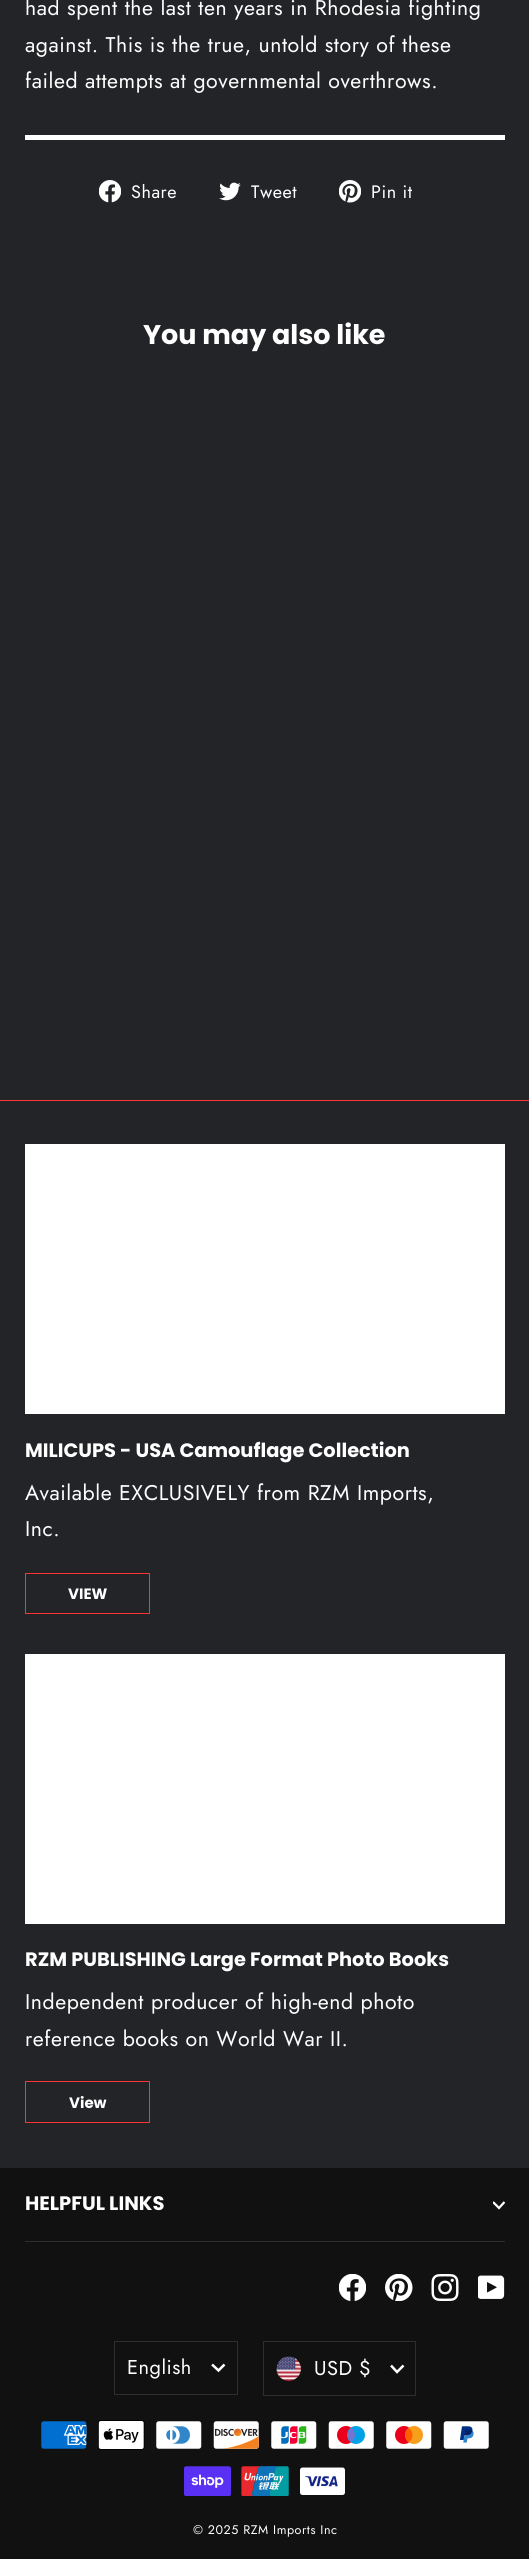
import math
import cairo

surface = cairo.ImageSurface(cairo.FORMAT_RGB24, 529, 2559)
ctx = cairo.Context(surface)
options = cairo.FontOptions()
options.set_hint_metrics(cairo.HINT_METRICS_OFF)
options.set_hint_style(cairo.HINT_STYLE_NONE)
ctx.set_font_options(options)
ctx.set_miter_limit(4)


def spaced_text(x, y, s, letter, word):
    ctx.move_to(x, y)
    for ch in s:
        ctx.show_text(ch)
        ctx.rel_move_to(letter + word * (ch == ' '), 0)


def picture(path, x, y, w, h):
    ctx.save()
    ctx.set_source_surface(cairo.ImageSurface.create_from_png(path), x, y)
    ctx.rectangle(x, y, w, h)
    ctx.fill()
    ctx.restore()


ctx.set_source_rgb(0.137, 0.141, 0.157)
ctx.paint()
ctx.select_font_face("Jost")
ctx.set_font_size(21.25)
ctx.set_source_rgb(1, 1, 1)
spaced_text(25, 15, "had spent the last ten years in Rhodesia fighting", 0.55, 0)
spaced_text(25, 52, "against. This is the true, untold story of these", 0.55, 0)
spaced_text(25, 88, "failed attempts at governmental overthrows.", 0.55, 0)
ctx.rectangle(25, 135, 480, 5)
ctx.fill()
picture("img1.png", 99, 180, 22, 23)
ctx.set_font_size(18)
spaced_text(131, 198, "Share", 0.55, 0)
picture("img2.png", 219, 182, 22, 19)
spaced_text(251, 198, "Tweet", 0.55, 0)
picture("img3.png", 339, 180, 22, 23)
spaced_text(371, 198, "Pin it", 0.55, 0)
ctx.select_font_face("Poppins", cairo.FONT_SLANT_NORMAL, cairo.FONT_WEIGHT_BOLD)
ctx.set_font_size(27)
ctx.move_to(143, 344)
ctx.show_text("You may also like")
ctx.set_source_rgb(1, 0.2, 0.2)
ctx.rectangle(0, 1100, 529, 1)
ctx.fill()
ctx.set_source_rgb(1, 1, 1)
ctx.rectangle(25, 1144, 480, 270)
ctx.fill()
ctx.set_font_size(19.4)
ctx.move_to(25, 1457)
ctx.show_text("MILICUPS - USA Camouflage Collection")
ctx.select_font_face("Jost")
ctx.set_font_size(21.25)
spaced_text(25, 1500, "Available EXCLUSIVELY from RZM Imports,", 0.55, 0)
spaced_text(25, 1536, "Inc.", 0.55, 0)
ctx.rectangle(25.5, 1573.5, 124, 40)
ctx.set_source_rgb(1, 0.2, 0.2)
ctx.set_line_width(1)
ctx.stroke()
ctx.select_font_face("Poppins", cairo.FONT_SLANT_NORMAL, cairo.FONT_WEIGHT_BOLD)
ctx.set_font_size(15)
ctx.set_source_rgb(1, 1, 1)
ctx.move_to(68, 1599)
ctx.show_text("VIEW")
ctx.rectangle(25, 1654, 480, 270)
ctx.fill()
ctx.set_font_size(19.4)
ctx.move_to(25, 1966)
ctx.show_text("RZM PUBLISHING Large Format Photo Books")
ctx.select_font_face("Jost")
ctx.set_font_size(21.25)
spaced_text(25, 2009, "Independent producer of high-end photo", 0.55, 0)
spaced_text(25, 2046, "reference books on World War II.", 0.55, 0)
ctx.rectangle(25.5, 2081.5, 124, 41)
ctx.set_source_rgb(1, 0.2, 0.2)
ctx.stroke()
ctx.select_font_face("Poppins", cairo.FONT_SLANT_NORMAL, cairo.FONT_WEIGHT_BOLD)
ctx.set_font_size(15)
ctx.set_source_rgb(1, 1, 1)
ctx.move_to(69, 2108)
ctx.show_text("View")
ctx.set_source_rgb(0.067, 0.067, 0.067)
ctx.rectangle(0, 2168, 529, 391)
ctx.fill()
ctx.set_font_size(19.5)
ctx.set_source_rgb(1, 1, 1)
ctx.move_to(25, 2210)
ctx.show_text("HELPFUL LINKS")
ctx.save()
ctx.rectangle(493, 2199, 12, 12)
ctx.clip()
ctx.new_path()
ctx.move_to(493, 2202)
ctx.line_to(499, 2208)
ctx.line_to(504.5, 2202)
ctx.set_line_width(2.2)
ctx.stroke()
ctx.restore()
ctx.set_source_rgb(0.18, 0.18, 0.18)
ctx.rectangle(25, 2241, 480, 1)
ctx.fill()
picture("img4.png", 339, 2274, 27, 27)
picture("img5.png", 385, 2274, 28, 27)
picture("img6.png", 431, 2274, 28, 27)
picture("img7.png", 478, 2275, 27, 24)
ctx.rectangle(114.5, 2341.5, 123, 53)
ctx.stroke()
ctx.select_font_face("Jost")
ctx.set_font_size(20)
ctx.set_source_rgb(1, 1, 1)
spaced_text(127, 2374, "English", 0.5, 0)
ctx.new_path()
ctx.move_to(212, 2364.5)
ctx.line_to(218.5, 2370.5)
ctx.line_to(224.5, 2364.5)
ctx.set_line_width(2.5)
ctx.stroke()
ctx.rectangle(263.5, 2341.5, 152, 54)
ctx.set_source_rgb(0.18, 0.18, 0.18)
ctx.set_line_width(1)
ctx.stroke()
picture("img8.png", 276, 2356, 26, 26)
ctx.set_source_rgb(1, 1, 1)
spaced_text(314, 2375, "USD $", 0.5, 0)
ctx.new_path()
ctx.move_to(391, 2365.5)
ctx.line_to(397, 2372)
ctx.line_to(403.5, 2365.5)
ctx.set_line_width(2.5)
ctx.stroke()
picture("img9.png", 41, 2421, 46, 28)
picture("img10.png", 98, 2420, 47, 30)
picture("img11.png", 156, 2421, 46, 28)
picture("img12.png", 213, 2421, 46, 28)
picture("img13.png", 271, 2421, 46, 28)
picture("img14.png", 328, 2421, 46, 28)
picture("img15.png", 386, 2421, 46, 28)
picture("img16.png", 443, 2421, 46, 28)
picture("img17.png", 184, 2466, 47, 30)
picture("img18.png", 241, 2466, 48, 30)
picture("img19.png", 300, 2467, 45, 28)
ctx.set_font_size(12.5)
spaced_text(193, 2534, "© 2025 RZM Imports Inc", 0.55, 0)
surface.write_to_png("page.png")
